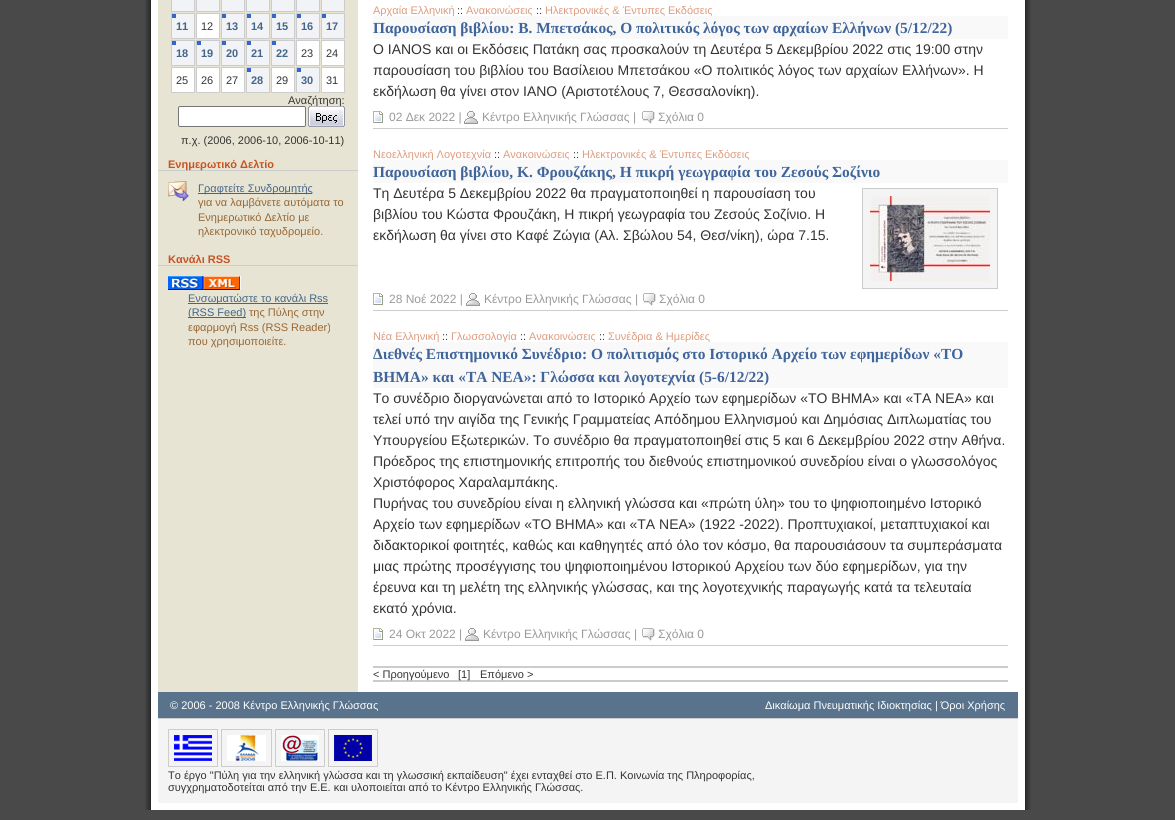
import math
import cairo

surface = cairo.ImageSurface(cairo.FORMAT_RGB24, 1175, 820)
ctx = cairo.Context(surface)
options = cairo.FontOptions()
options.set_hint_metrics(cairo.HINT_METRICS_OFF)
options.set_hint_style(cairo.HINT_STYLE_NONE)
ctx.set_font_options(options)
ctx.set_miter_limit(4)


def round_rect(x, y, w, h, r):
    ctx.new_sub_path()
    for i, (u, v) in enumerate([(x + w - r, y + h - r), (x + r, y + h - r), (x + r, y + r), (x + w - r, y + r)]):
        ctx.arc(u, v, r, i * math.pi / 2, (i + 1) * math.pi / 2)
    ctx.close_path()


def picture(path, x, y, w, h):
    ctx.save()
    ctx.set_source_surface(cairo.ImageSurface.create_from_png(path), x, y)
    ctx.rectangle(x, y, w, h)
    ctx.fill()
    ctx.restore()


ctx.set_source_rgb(0.286, 0.286, 0.286)
ctx.paint()
picture("img1.png", 145, 0, 886, 810)
ctx.set_source_rgb(0.906, 0.894, 0.827)
ctx.rectangle(158, 0, 200, 692)
ctx.fill()
ctx.set_source_rgb(0.945, 0.953, 0.965)
ctx.rectangle(171.5, -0.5, 23, 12)
ctx.fill_preserve()
ctx.set_source_rgb(0.8, 0.8, 0.8)
ctx.set_line_width(1)
ctx.stroke()
ctx.set_source_rgb(0.945, 0.953, 0.965)
ctx.rectangle(196.5, -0.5, 23, 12)
ctx.fill_preserve()
ctx.set_source_rgb(0.8, 0.8, 0.8)
ctx.stroke()
ctx.set_source_rgb(0.945, 0.953, 0.965)
ctx.rectangle(221.5, -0.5, 23, 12)
ctx.fill_preserve()
ctx.set_source_rgb(0.8, 0.8, 0.8)
ctx.stroke()
ctx.set_source_rgb(0.945, 0.953, 0.965)
ctx.rectangle(246.5, -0.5, 23, 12)
ctx.fill_preserve()
ctx.set_source_rgb(0.8, 0.8, 0.8)
ctx.stroke()
ctx.set_source_rgb(0.945, 0.953, 0.965)
ctx.rectangle(271.5, -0.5, 23, 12)
ctx.fill_preserve()
ctx.set_source_rgb(0.8, 0.8, 0.8)
ctx.stroke()
ctx.set_source_rgb(0.945, 0.953, 0.965)
ctx.rectangle(296.5, -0.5, 23, 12)
ctx.fill_preserve()
ctx.set_source_rgb(0.8, 0.8, 0.8)
ctx.stroke()
ctx.set_source_rgb(0.945, 0.953, 0.965)
ctx.rectangle(321.5, -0.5, 23, 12)
ctx.fill_preserve()
ctx.set_source_rgb(0.8, 0.8, 0.8)
ctx.stroke()
ctx.set_source_rgb(0.945, 0.953, 0.965)
ctx.rectangle(172, 14, 22, 24)
ctx.fill()
ctx.set_source_rgb(0.2, 0.4, 0.8)
ctx.rectangle(172, 14, 4, 4)
ctx.fill()
ctx.rectangle(171.5, 13.5, 23, 25)
ctx.set_source_rgb(0.8, 0.8, 0.8)
ctx.stroke()
ctx.select_font_face("Liberation Sans", cairo.FONT_SLANT_NORMAL, cairo.FONT_WEIGHT_BOLD)
ctx.set_font_size(11)
ctx.set_source_rgb(0.267, 0.4, 0.533)
ctx.move_to(176, 30)
ctx.show_text("11")
ctx.set_source_rgb(1, 1, 1)
ctx.rectangle(196.5, 13.5, 23, 25)
ctx.fill_preserve()
ctx.set_source_rgb(0.8, 0.8, 0.8)
ctx.stroke()
ctx.select_font_face("Liberation Sans")
ctx.set_source_rgb(0.2, 0.2, 0.2)
ctx.move_to(201, 30)
ctx.show_text("12")
ctx.set_source_rgb(0.945, 0.953, 0.965)
ctx.rectangle(222, 14, 22, 24)
ctx.fill()
ctx.set_source_rgb(0.2, 0.4, 0.8)
ctx.rectangle(222, 14, 4, 4)
ctx.fill()
ctx.rectangle(221.5, 13.5, 23, 25)
ctx.set_source_rgb(0.8, 0.8, 0.8)
ctx.stroke()
ctx.select_font_face("Liberation Sans", cairo.FONT_SLANT_NORMAL, cairo.FONT_WEIGHT_BOLD)
ctx.set_source_rgb(0.267, 0.4, 0.533)
ctx.move_to(226, 30)
ctx.show_text("13")
ctx.set_source_rgb(0.945, 0.953, 0.965)
ctx.rectangle(247, 14, 22, 24)
ctx.fill()
ctx.set_source_rgb(0.2, 0.4, 0.8)
ctx.rectangle(247, 14, 4, 4)
ctx.fill()
ctx.rectangle(246.5, 13.5, 23, 25)
ctx.set_source_rgb(0.8, 0.8, 0.8)
ctx.stroke()
ctx.set_source_rgb(0.267, 0.4, 0.533)
ctx.move_to(251, 30)
ctx.show_text("14")
ctx.set_source_rgb(0.945, 0.953, 0.965)
ctx.rectangle(272, 14, 22, 24)
ctx.fill()
ctx.set_source_rgb(0.2, 0.4, 0.8)
ctx.rectangle(272, 14, 4, 4)
ctx.fill()
ctx.rectangle(271.5, 13.5, 23, 25)
ctx.set_source_rgb(0.8, 0.8, 0.8)
ctx.stroke()
ctx.set_source_rgb(0.267, 0.4, 0.533)
ctx.move_to(276, 30)
ctx.show_text("15")
ctx.set_source_rgb(0.945, 0.953, 0.965)
ctx.rectangle(297, 14, 22, 24)
ctx.fill()
ctx.set_source_rgb(0.2, 0.4, 0.8)
ctx.rectangle(297, 14, 4, 4)
ctx.fill()
ctx.rectangle(296.5, 13.5, 23, 25)
ctx.set_source_rgb(0.8, 0.8, 0.8)
ctx.stroke()
ctx.set_source_rgb(0.267, 0.4, 0.533)
ctx.move_to(301, 30)
ctx.show_text("16")
ctx.set_source_rgb(0.945, 0.953, 0.965)
ctx.rectangle(322, 14, 22, 24)
ctx.fill()
ctx.set_source_rgb(0.2, 0.4, 0.8)
ctx.rectangle(322, 14, 4, 4)
ctx.fill()
ctx.rectangle(321.5, 13.5, 23, 25)
ctx.set_source_rgb(0.8, 0.8, 0.8)
ctx.stroke()
ctx.set_source_rgb(0.267, 0.4, 0.533)
ctx.move_to(326, 30)
ctx.show_text("17")
ctx.set_source_rgb(0.945, 0.953, 0.965)
ctx.rectangle(172, 41, 22, 24)
ctx.fill()
ctx.set_source_rgb(0.2, 0.4, 0.8)
ctx.rectangle(172, 41, 4, 4)
ctx.fill()
ctx.rectangle(171.5, 40.5, 23, 25)
ctx.set_source_rgb(0.8, 0.8, 0.8)
ctx.stroke()
ctx.set_source_rgb(0.267, 0.4, 0.533)
ctx.move_to(176, 57)
ctx.show_text("18")
ctx.set_source_rgb(0.945, 0.953, 0.965)
ctx.rectangle(197, 41, 22, 24)
ctx.fill()
ctx.set_source_rgb(0.2, 0.4, 0.8)
ctx.rectangle(197, 41, 4, 4)
ctx.fill()
ctx.rectangle(196.5, 40.5, 23, 25)
ctx.set_source_rgb(0.8, 0.8, 0.8)
ctx.stroke()
ctx.set_source_rgb(0.267, 0.4, 0.533)
ctx.move_to(201, 57)
ctx.show_text("19")
ctx.set_source_rgb(0.945, 0.953, 0.965)
ctx.rectangle(222, 41, 22, 24)
ctx.fill()
ctx.set_source_rgb(0.2, 0.4, 0.8)
ctx.rectangle(222, 41, 4, 4)
ctx.fill()
ctx.rectangle(221.5, 40.5, 23, 25)
ctx.set_source_rgb(0.8, 0.8, 0.8)
ctx.stroke()
ctx.set_source_rgb(0.267, 0.4, 0.533)
ctx.move_to(226, 57)
ctx.show_text("20")
ctx.set_source_rgb(0.945, 0.953, 0.965)
ctx.rectangle(247, 41, 22, 24)
ctx.fill()
ctx.set_source_rgb(0.2, 0.4, 0.8)
ctx.rectangle(247, 41, 4, 4)
ctx.fill()
ctx.rectangle(246.5, 40.5, 23, 25)
ctx.set_source_rgb(0.8, 0.8, 0.8)
ctx.stroke()
ctx.set_source_rgb(0.267, 0.4, 0.533)
ctx.move_to(251, 57)
ctx.show_text("21")
ctx.set_source_rgb(0.945, 0.953, 0.965)
ctx.rectangle(272, 41, 22, 24)
ctx.fill()
ctx.set_source_rgb(0.2, 0.4, 0.8)
ctx.rectangle(272, 41, 4, 4)
ctx.fill()
ctx.rectangle(271.5, 40.5, 23, 25)
ctx.set_source_rgb(0.8, 0.8, 0.8)
ctx.stroke()
ctx.set_source_rgb(0.267, 0.4, 0.533)
ctx.move_to(276, 57)
ctx.show_text("22")
ctx.set_source_rgb(1, 1, 1)
ctx.rectangle(296.5, 40.5, 23, 25)
ctx.fill_preserve()
ctx.set_source_rgb(0.8, 0.8, 0.8)
ctx.stroke()
ctx.select_font_face("Liberation Sans")
ctx.set_source_rgb(0.2, 0.2, 0.2)
ctx.move_to(301, 57)
ctx.show_text("23")
ctx.set_source_rgb(1, 1, 1)
ctx.rectangle(321.5, 40.5, 23, 25)
ctx.fill_preserve()
ctx.set_source_rgb(0.8, 0.8, 0.8)
ctx.stroke()
ctx.set_source_rgb(0.2, 0.2, 0.2)
ctx.move_to(326, 57)
ctx.show_text("24")
ctx.set_source_rgb(1, 1, 1)
ctx.rectangle(171.5, 67.5, 23, 25)
ctx.fill_preserve()
ctx.set_source_rgb(0.8, 0.8, 0.8)
ctx.stroke()
ctx.set_source_rgb(0.2, 0.2, 0.2)
ctx.move_to(176, 84)
ctx.show_text("25")
ctx.set_source_rgb(1, 1, 1)
ctx.rectangle(196.5, 67.5, 23, 25)
ctx.fill_preserve()
ctx.set_source_rgb(0.8, 0.8, 0.8)
ctx.stroke()
ctx.set_source_rgb(0.2, 0.2, 0.2)
ctx.move_to(201, 84)
ctx.show_text("26")
ctx.set_source_rgb(1, 1, 1)
ctx.rectangle(221.5, 67.5, 23, 25)
ctx.fill_preserve()
ctx.set_source_rgb(0.8, 0.8, 0.8)
ctx.stroke()
ctx.set_source_rgb(0.2, 0.2, 0.2)
ctx.move_to(226, 84)
ctx.show_text("27")
ctx.set_source_rgb(0.945, 0.953, 0.965)
ctx.rectangle(247, 68, 22, 24)
ctx.fill()
ctx.set_source_rgb(0.2, 0.4, 0.8)
ctx.rectangle(247, 68, 4, 4)
ctx.fill()
ctx.rectangle(246.5, 67.5, 23, 25)
ctx.set_source_rgb(0.8, 0.8, 0.8)
ctx.stroke()
ctx.select_font_face("Liberation Sans", cairo.FONT_SLANT_NORMAL, cairo.FONT_WEIGHT_BOLD)
ctx.set_source_rgb(0.267, 0.4, 0.533)
ctx.move_to(251, 84)
ctx.show_text("28")
ctx.set_source_rgb(1, 1, 1)
ctx.rectangle(271.5, 67.5, 23, 25)
ctx.fill_preserve()
ctx.set_source_rgb(0.8, 0.8, 0.8)
ctx.stroke()
ctx.select_font_face("Liberation Sans")
ctx.set_source_rgb(0.2, 0.2, 0.2)
ctx.move_to(276, 84)
ctx.show_text("29")
ctx.set_source_rgb(0.945, 0.953, 0.965)
ctx.rectangle(297, 68, 22, 24)
ctx.fill()
ctx.set_source_rgb(0.2, 0.4, 0.8)
ctx.rectangle(297, 68, 4, 4)
ctx.fill()
ctx.rectangle(296.5, 67.5, 23, 25)
ctx.set_source_rgb(0.8, 0.8, 0.8)
ctx.stroke()
ctx.select_font_face("Liberation Sans", cairo.FONT_SLANT_NORMAL, cairo.FONT_WEIGHT_BOLD)
ctx.set_source_rgb(0.267, 0.4, 0.533)
ctx.move_to(301, 84)
ctx.show_text("30")
ctx.set_source_rgb(1, 1, 1)
ctx.rectangle(321.5, 67.5, 23, 25)
ctx.fill_preserve()
ctx.set_source_rgb(0.8, 0.8, 0.8)
ctx.stroke()
ctx.select_font_face("Liberation Sans")
ctx.set_source_rgb(0.2, 0.2, 0.2)
ctx.move_to(326, 84)
ctx.show_text("31")
ctx.move_to(288, 104)
ctx.show_text("Αναζήτηση:")
ctx.set_source_rgb(1, 1, 1)
round_rect(178.5, 106.5, 127, 20, 1.5)
ctx.fill_preserve()
ctx.set_source_rgb(0.463, 0.463, 0.463)
ctx.stroke()
picture("img2.png", 308, 106, 37, 21)
ctx.set_source_rgb(0.2, 0.2, 0.2)
ctx.move_to(181, 144)
ctx.show_text("π.χ. (2006, 2006-10, 2006-10-11)")
ctx.set_source_rgb(0.8, 0.8, 0.8)
ctx.rectangle(158, 170, 200, 1)
ctx.fill()
ctx.select_font_face("Liberation Sans", cairo.FONT_SLANT_NORMAL, cairo.FONT_WEIGHT_BOLD)
ctx.set_source_rgb(0.78, 0.325, 0.125)
ctx.move_to(168, 168)
ctx.show_text("Ενημερωτικό Δελτίο")
picture("img3.png", 168, 181, 21, 20)
ctx.set_source_rgb(0.267, 0.4, 0.533)
ctx.rectangle(198, 193, 114, 1)
ctx.fill()
ctx.select_font_face("Liberation Sans")
ctx.move_to(198, 192)
ctx.show_text("Γραφτείτε Συνδρομητής")
ctx.set_source_rgb(0.6, 0.4, 0.2)
ctx.move_to(198, 206)
ctx.show_text("για να λαμβάνετε αυτόματα το")
ctx.move_to(198, 221)
ctx.show_text("Ενημερωτικό Δελτίο με")
ctx.move_to(198, 235)
ctx.show_text("ηλεκτρονικό ταχυδρομείο.")
ctx.set_source_rgb(0.8, 0.8, 0.8)
ctx.rectangle(158, 265, 200, 1)
ctx.fill()
ctx.select_font_face("Liberation Sans", cairo.FONT_SLANT_NORMAL, cairo.FONT_WEIGHT_BOLD)
ctx.set_source_rgb(0.78, 0.325, 0.125)
ctx.move_to(168, 263)
ctx.show_text("Κανάλι RSS")
picture("img4.png", 168, 276, 73, 14)
ctx.set_source_rgb(0.267, 0.4, 0.533)
ctx.rectangle(188, 303, 140, 1)
ctx.fill()
ctx.select_font_face("Liberation Sans")
ctx.move_to(188, 302)
ctx.show_text("Ενσωματώστε το κανάλι Rss")
ctx.rectangle(188, 317, 58, 1)
ctx.fill()
ctx.move_to(188, 316)
ctx.show_text("(RSS Feed)")
ctx.set_source_rgb(0.6, 0.4, 0.2)
ctx.move_to(249, 316)
ctx.show_text("της Πύλης στην")
ctx.move_to(188, 331)
ctx.show_text("εφαρμογή Rss (RSS Reader)")
ctx.move_to(188, 345)
ctx.show_text("που χρησιμοποιείτε.")
ctx.set_source_rgb(0.871, 0.608, 0.494)
ctx.move_to(373, 14)
ctx.show_text("Αρχαία Ελληνική")
ctx.set_source_rgb(0.2, 0.2, 0.2)
ctx.move_to(457, 14)
ctx.show_text("::")
ctx.set_source_rgb(0.871, 0.608, 0.494)
ctx.move_to(466, 14)
ctx.show_text("Ανακοινώσεις")
ctx.set_source_rgb(0.2, 0.2, 0.2)
ctx.move_to(536, 14)
ctx.show_text("::")
ctx.set_source_rgb(0.871, 0.608, 0.494)
ctx.move_to(545, 14)
ctx.show_text("Ηλεκτρονικές & Έντυπες Εκδόσεις")
ctx.set_source_rgb(0.973, 0.973, 0.973)
ctx.rectangle(373, 16, 635, 23)
ctx.fill()
ctx.select_font_face("Liberation Serif", cairo.FONT_SLANT_NORMAL, cairo.FONT_WEIGHT_BOLD)
ctx.set_font_size(15.4)
ctx.set_source_rgb(0.251, 0.396, 0.608)
ctx.move_to(373, 33)
ctx.show_text("Παρουσίαση βιβλίου: Β. Μπετσάκος, Ο πολιτικός λόγος των αρχαίων Ελλήνων (5/12/22)")
ctx.select_font_face("Liberation Sans")
ctx.set_font_size(14)
ctx.set_source_rgb(0.2, 0.2, 0.2)
ctx.move_to(373, 54)
ctx.show_text("Ο IANOS και οι Εκδόσεις Πατάκη σας προσκαλούν τη Δευτέρα 5 Δεκεμβρίου 2022 στις 19:00 στην")
ctx.move_to(373, 75)
ctx.show_text("παρουσίαση του βιβλίου του Βασίλειου Μπετσάκου «Ο πολιτικός λόγος των αρχαίων Ελλήνων». Η")
ctx.move_to(373, 96)
ctx.show_text("εκδήλωση θα γίνει στον IANO (Αριστοτέλους 7, Θεσσαλονίκη).")
ctx.set_source_rgb(0.8, 0.8, 0.8)
ctx.rectangle(373, 128, 635, 1)
ctx.fill()
picture("img5.png", 373, 111, 10, 12)
ctx.set_font_size(12)
ctx.set_source_rgb(0.6, 0.6, 0.6)
ctx.move_to(389, 121)
ctx.show_text("02 Δεκ 2022 |")
picture("img6.png", 464, 111, 14, 13)
ctx.move_to(482, 121)
ctx.show_text("Κέντρο Ελληνικής Γλώσσας |")
picture("img7.png", 642, 111, 13, 13)
ctx.move_to(658, 121)
ctx.show_text("Σχόλια 0")
ctx.set_font_size(11)
ctx.set_source_rgb(0.871, 0.608, 0.494)
ctx.move_to(373, 158)
ctx.show_text("Νεοελληνική Λογοτεχνία")
ctx.set_source_rgb(0.2, 0.2, 0.2)
ctx.move_to(494, 158)
ctx.show_text("::")
ctx.set_source_rgb(0.871, 0.608, 0.494)
ctx.move_to(503, 158)
ctx.show_text("Ανακοινώσεις")
ctx.set_source_rgb(0.2, 0.2, 0.2)
ctx.move_to(573, 158)
ctx.show_text("::")
ctx.set_source_rgb(0.871, 0.608, 0.494)
ctx.move_to(582, 158)
ctx.show_text("Ηλεκτρονικές & Έντυπες Εκδόσεις")
ctx.set_source_rgb(0.973, 0.973, 0.973)
ctx.rectangle(373, 160, 635, 23)
ctx.fill()
ctx.select_font_face("Liberation Serif", cairo.FONT_SLANT_NORMAL, cairo.FONT_WEIGHT_BOLD)
ctx.set_font_size(15.4)
ctx.set_source_rgb(0.251, 0.396, 0.608)
ctx.move_to(373, 177)
ctx.show_text("Παρουσίαση βιβλίου, Κ. Φρουζάκης, Η πικρή γεωγραφία του Ζεσούς Σοζίνιο")
ctx.select_font_face("Liberation Sans")
ctx.set_font_size(14)
ctx.set_source_rgb(0.2, 0.2, 0.2)
ctx.move_to(373, 198)
ctx.show_text("Τη Δευτέρα 5 Δεκεμβρίου 2022 θα πραγματοποιηθεί η παρουσίαση του")
ctx.move_to(373, 219)
ctx.show_text("βιβλίου του Κώστα Φρουζάκη, Η πικρή γεωγραφία του Ζεσούς Σοζίνιο. Η")
ctx.move_to(373, 240)
ctx.show_text("εκδήλωση θα γίνει στο Καφέ Ζώγια (Αλ. Σβώλου 54, Θεσ/νίκη), ώρα 7.15.")
ctx.set_source_rgb(0.957, 0.957, 0.957)
ctx.rectangle(862.5, 188.5, 135, 100)
ctx.fill_preserve()
ctx.set_source_rgb(0.8, 0.8, 0.8)
ctx.stroke()
picture("img8.png", 870, 196, 120, 85)
ctx.rectangle(373, 310, 635, 1)
ctx.fill()
picture("img5.png", 373, 293, 10, 12)
ctx.set_font_size(12)
ctx.set_source_rgb(0.6, 0.6, 0.6)
ctx.move_to(389, 303)
ctx.show_text("28 Νοέ 2022 |")
picture("img6.png", 466, 293, 14, 13)
ctx.move_to(484, 303)
ctx.show_text("Κέντρο Ελληνικής Γλώσσας |")
picture("img7.png", 643, 293, 13, 13)
ctx.move_to(659, 303)
ctx.show_text("Σχόλια 0")
ctx.set_font_size(11)
ctx.set_source_rgb(0.871, 0.608, 0.494)
ctx.move_to(373, 340)
ctx.show_text("Νέα Ελληνική")
ctx.set_source_rgb(0.2, 0.2, 0.2)
ctx.move_to(442, 340)
ctx.show_text("::")
ctx.set_source_rgb(0.871, 0.608, 0.494)
ctx.move_to(451, 340)
ctx.show_text("Γλωσσολογία")
ctx.set_source_rgb(0.2, 0.2, 0.2)
ctx.move_to(520, 340)
ctx.show_text("::")
ctx.set_source_rgb(0.871, 0.608, 0.494)
ctx.move_to(529, 340)
ctx.show_text("Ανακοινώσεις")
ctx.set_source_rgb(0.2, 0.2, 0.2)
ctx.move_to(599, 340)
ctx.show_text("::")
ctx.set_source_rgb(0.871, 0.608, 0.494)
ctx.move_to(608, 340)
ctx.show_text("Συνέδρια & Ημερίδες")
ctx.set_source_rgb(0.973, 0.973, 0.973)
ctx.rectangle(373, 342, 635, 46)
ctx.fill()
ctx.select_font_face("Liberation Serif", cairo.FONT_SLANT_NORMAL, cairo.FONT_WEIGHT_BOLD)
ctx.set_font_size(15.4)
ctx.set_source_rgb(0.251, 0.396, 0.608)
ctx.move_to(373, 359)
ctx.show_text("Διεθνές Επιστημονικό Συνέδριο: Ο πολιτισμός στο Ιστορικό Αρχείο των εφημερίδων «ΤΟ")
ctx.move_to(373, 382)
ctx.show_text("ΒΗΜΑ» και «ΤΑ ΝΕΑ»: Γλώσσα και λογοτεχνία (5-6/12/22)")
ctx.select_font_face("Liberation Sans")
ctx.set_font_size(14)
ctx.set_source_rgb(0.2, 0.2, 0.2)
ctx.move_to(373, 403)
ctx.show_text("Το συνέδριο διοργανώνεται από το Ιστορικό Αρχείο των εφημερίδων «ΤΟ ΒΗΜΑ» και «ΤΑ ΝΕΑ» και")
ctx.move_to(373, 424)
ctx.show_text("τελεί υπό την αιγίδα της Γενικής Γραμματείας Απόδημου Ελληνισμού και Δημόσιας Διπλωματίας του")
ctx.move_to(373, 445)
ctx.show_text("Υπουργείου Εξωτερικών. Το συνέδριο θα πραγματοποιηθεί στις 5 και 6 Δεκεμβρίου 2022 στην Αθήνα.")
ctx.move_to(373, 466)
ctx.show_text("Πρόεδρος της επιστημονικής επιτροπής του διεθνούς επιστημονικού συνεδρίου είναι ο γλωσσολόγος")
ctx.move_to(373, 487)
ctx.show_text("Χριστόφορος Χαραλαμπάκης.")
ctx.move_to(373, 508)
ctx.show_text("Πυρήνας του συνεδρίου είναι η ελληνική γλώσσα και «πρώτη ύλη» του το ψηφιοποιημένο Ιστορικό")
ctx.move_to(373, 529)
ctx.show_text("Αρχείο των εφημερίδων «ΤΟ ΒΗΜΑ» και «ΤΑ ΝΕΑ» (1922 -2022). Προπτυχιακοί, μεταπτυχιακοί και")
ctx.move_to(373, 550)
ctx.show_text("διδακτορικοί φοιτητές, καθώς και καθηγητές από όλο τον κόσμο, θα παρουσιάσουν τα συμπεράσματα")
ctx.move_to(373, 571)
ctx.show_text("μιας πρώτης προσέγγισης του ψηφιοποιημένου Ιστορικού Αρχείου των δύο εφημερίδων, για την")
ctx.move_to(373, 592)
ctx.show_text("έρευνα και τη μελέτη της ελληνικής γλώσσας, και της λογοτεχνικής παραγωγής κατά τα τελευταία")
ctx.move_to(373, 613)
ctx.show_text("εκατό χρόνια.")
ctx.set_source_rgb(0.8, 0.8, 0.8)
ctx.rectangle(373, 645, 635, 1)
ctx.fill()
picture("img5.png", 373, 628, 10, 12)
ctx.set_font_size(12)
ctx.set_source_rgb(0.6, 0.6, 0.6)
ctx.move_to(389, 638)
ctx.show_text("24 Οκτ 2022 |")
picture("img6.png", 465, 628, 14, 13)
ctx.move_to(483, 638)
ctx.show_text("Κέντρο Ελληνικής Γλώσσας |")
picture("img7.png", 642, 628, 13, 13)
ctx.move_to(658, 638)
ctx.show_text("Σχόλια 0")
ctx.set_source_rgb(0.8, 0.8, 0.8)
ctx.rectangle(373, 666, 635, 2)
ctx.fill()
ctx.rectangle(373, 680, 635, 2)
ctx.fill()
ctx.set_font_size(11)
ctx.set_source_rgb(0.2, 0.2, 0.2)
ctx.move_to(373, 678)
ctx.show_text("< Προηγούμενο")
ctx.move_to(458, 678)
ctx.show_text("[1]")
ctx.move_to(480, 678)
ctx.show_text("Επόμενο >")
ctx.set_source_rgb(0.349, 0.451, 0.553)
ctx.rectangle(158, 692, 860, 26)
ctx.fill()
ctx.set_source_rgb(1, 1, 1)
ctx.move_to(170, 709)
ctx.show_text("© 2006 - 2008 Κέντρο Ελληνικής Γλώσσας")
ctx.move_to(765, 709)
ctx.show_text("Δικαίωμα Πνευματικής Ιδιοκτησίας | Όροι Χρήσης")
ctx.set_source_rgb(0.957, 0.957, 0.957)
ctx.rectangle(158, 719, 860, 84)
ctx.fill()
ctx.set_source_rgb(0.8, 0.8, 0.8)
ctx.rectangle(158, 718, 860, 1)
ctx.fill()
ctx.rectangle(168.5, 729.5, 49, 37)
ctx.stroke()
ctx.rectangle(221.5, 729.5, 50, 37)
ctx.stroke()
ctx.rectangle(275.5, 729.5, 49, 37)
ctx.stroke()
ctx.rectangle(328.5, 729.5, 49, 37)
ctx.stroke()
picture("img9.png", 174, 735, 38, 26)
picture("img10.png", 227, 735, 39, 26)
picture("img11.png", 281, 735, 38, 26)
picture("img12.png", 334, 735, 38, 26)
ctx.set_source_rgb(0.2, 0.2, 0.2)
ctx.move_to(168, 779)
ctx.show_text("Το έργο \"Πύλη για την ελληνική γλώσσα και τη γλωσσική εκπαίδευση\" έχει ενταχθεί στο Ε.Π. Κοινωνία της Πληροφορίας,")
ctx.move_to(168, 791)
ctx.show_text("συγχρηματοδοτείται από την Ε.E. και υλοποιείται από το Κέντρο Ελληνικής Γλώσσας.")
surface.write_to_png("page.png")
